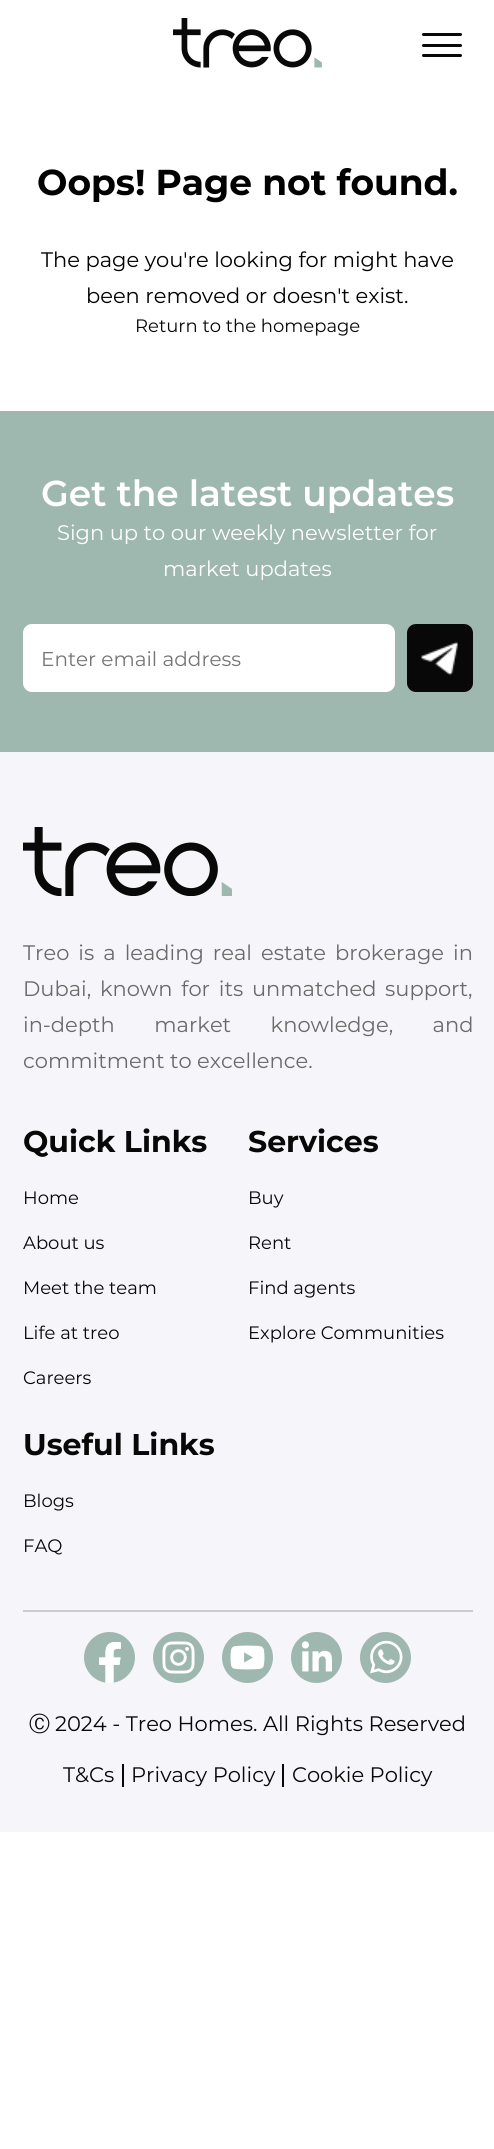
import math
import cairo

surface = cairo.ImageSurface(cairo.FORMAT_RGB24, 494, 2149)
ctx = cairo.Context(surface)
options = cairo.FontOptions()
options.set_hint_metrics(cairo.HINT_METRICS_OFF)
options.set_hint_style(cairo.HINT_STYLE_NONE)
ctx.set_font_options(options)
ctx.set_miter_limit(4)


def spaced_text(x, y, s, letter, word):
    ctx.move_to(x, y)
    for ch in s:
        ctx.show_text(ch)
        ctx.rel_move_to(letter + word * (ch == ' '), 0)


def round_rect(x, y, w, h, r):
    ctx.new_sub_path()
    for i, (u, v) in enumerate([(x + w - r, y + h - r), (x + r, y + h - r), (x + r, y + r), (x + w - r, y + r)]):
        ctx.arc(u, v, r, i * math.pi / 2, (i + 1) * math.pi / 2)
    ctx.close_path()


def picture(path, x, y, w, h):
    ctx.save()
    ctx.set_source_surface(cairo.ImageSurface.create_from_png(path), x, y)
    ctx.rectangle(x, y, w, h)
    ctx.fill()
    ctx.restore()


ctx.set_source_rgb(1, 1, 1)
ctx.paint()
picture("img1.png", 173, 18, 149, 50)
ctx.set_source_rgb(0.035, 0.035, 0.035)
round_rect(422, 33, 40, 3, 1.5)
ctx.fill()
round_rect(422, 44, 40, 3, 1.5)
ctx.fill()
round_rect(422, 54, 40, 3, 1.5)
ctx.fill()
ctx.select_font_face("Montserrat", cairo.FONT_SLANT_NORMAL, cairo.FONT_WEIGHT_BOLD)
ctx.set_font_size(36)
ctx.set_source_rgb(0, 0, 0)
ctx.move_to(37, 195)
ctx.show_text("Oops! Page not found.")
ctx.select_font_face("Montserrat")
ctx.set_font_size(21)
ctx.move_to(41, 267)
ctx.show_text("The page you're looking for might have")
ctx.move_to(86, 303)
ctx.show_text("been removed or doesn't exist.")
ctx.set_font_size(18)
ctx.set_source_rgb(0.035, 0.035, 0.035)
ctx.move_to(135, 332)
ctx.show_text("Return to the homepage")
ctx.set_source_rgb(0.62, 0.718, 0.686)
ctx.rectangle(0, 411, 494, 341)
ctx.fill()
ctx.select_font_face("Montserrat SemiBold")
ctx.set_font_size(36)
ctx.set_source_rgb(1, 1, 1)
ctx.move_to(41, 506)
ctx.show_text("Get the latest updates")
ctx.select_font_face("Montserrat")
ctx.set_font_size(21)
ctx.move_to(57, 540)
ctx.show_text("Sign up to our weekly newsletter for")
ctx.move_to(163, 576)
ctx.show_text("market updates")
round_rect(23, 624, 372, 68, 9)
ctx.fill()
ctx.set_font_size(20)
ctx.set_source_rgb(0.459, 0.459, 0.459)
ctx.move_to(41, 666)
ctx.show_text("Enter email address")
ctx.set_source_rgb(0.035, 0.035, 0.035)
round_rect(407, 624, 66, 68, 9)
ctx.fill()
picture("img2.png", 421, 641, 37, 35)
ctx.set_source_rgb(0.961, 0.961, 0.98)
ctx.rectangle(0, 752, 494, 1080)
ctx.fill()
picture("img3.png", 23, 827, 209, 69)
ctx.set_font_size(21)
ctx.set_source_rgb(0.416, 0.416, 0.416)
spaced_text(23, 960, "Treo is a leading real estate brokerage in", 0, 3.5)
spaced_text(23, 996, "Dubai, known for its unmatched support,", 0, 3.25)
spaced_text(23, 1032, "in-depth market knowledge, and", 0, 34)
ctx.move_to(23, 1068)
ctx.show_text("commitment to excellence.")
ctx.select_font_face("Montserrat", cairo.FONT_SLANT_NORMAL, cairo.FONT_WEIGHT_BOLD)
ctx.set_font_size(30)
ctx.set_source_rgb(0.035, 0.035, 0.035)
ctx.move_to(23, 1152)
ctx.show_text("Quick Links")
ctx.select_font_face("Montserrat")
ctx.set_font_size(18)
ctx.move_to(23, 1204)
ctx.show_text("Home")
ctx.move_to(23, 1249)
ctx.show_text("About us")
ctx.move_to(23, 1294)
ctx.show_text("Meet the team")
ctx.move_to(23, 1339)
ctx.show_text("Life at treo")
ctx.move_to(23, 1384)
ctx.show_text("Careers")
ctx.select_font_face("Montserrat", cairo.FONT_SLANT_NORMAL, cairo.FONT_WEIGHT_BOLD)
ctx.set_font_size(30)
ctx.move_to(248, 1152)
ctx.show_text("Services")
ctx.select_font_face("Montserrat")
ctx.set_font_size(18)
ctx.move_to(248, 1204)
ctx.show_text("Buy")
ctx.move_to(248, 1249)
ctx.show_text("Rent")
ctx.move_to(248, 1294)
ctx.show_text("Find agents")
ctx.move_to(248, 1339)
ctx.show_text("Explore Communities")
ctx.select_font_face("Montserrat", cairo.FONT_SLANT_NORMAL, cairo.FONT_WEIGHT_BOLD)
ctx.set_font_size(30)
ctx.move_to(23, 1455)
ctx.show_text("Useful Links")
ctx.select_font_face("Montserrat")
ctx.set_font_size(18)
ctx.move_to(23, 1507)
ctx.show_text("Blogs")
ctx.move_to(23, 1552)
ctx.show_text("FAQ")
ctx.set_source_rgb(0.796, 0.796, 0.816)
ctx.rectangle(23, 1610, 450, 2)
ctx.fill()
picture("img4.png", 84, 1632, 51, 51)
picture("img5.png", 153, 1632, 51, 51)
picture("img6.png", 222, 1632, 51, 51)
picture("img7.png", 291, 1632, 51, 51)
picture("img8.png", 360, 1632, 51, 51)
ctx.select_font_face("WenQuanYi Zen Hei Medium")
ctx.set_font_size(21)
ctx.set_source_rgb(0.035, 0.035, 0.035)
ctx.move_to(29, 1731)
ctx.show_text("Ⓒ")
ctx.select_font_face("Montserrat")
ctx.move_to(55, 1731)
ctx.show_text("2024 - Treo Homes. All Rights Reserved")
ctx.move_to(63, 1782)
ctx.show_text("T&Cs")
ctx.rectangle(282, 1764, 2, 23)
ctx.fill()
ctx.rectangle(122, 1764, 2, 23)
ctx.fill()
ctx.move_to(131, 1782)
ctx.show_text("Privacy Policy")
ctx.move_to(292, 1782)
ctx.show_text("Cookie Policy")
surface.write_to_png("page.png")
